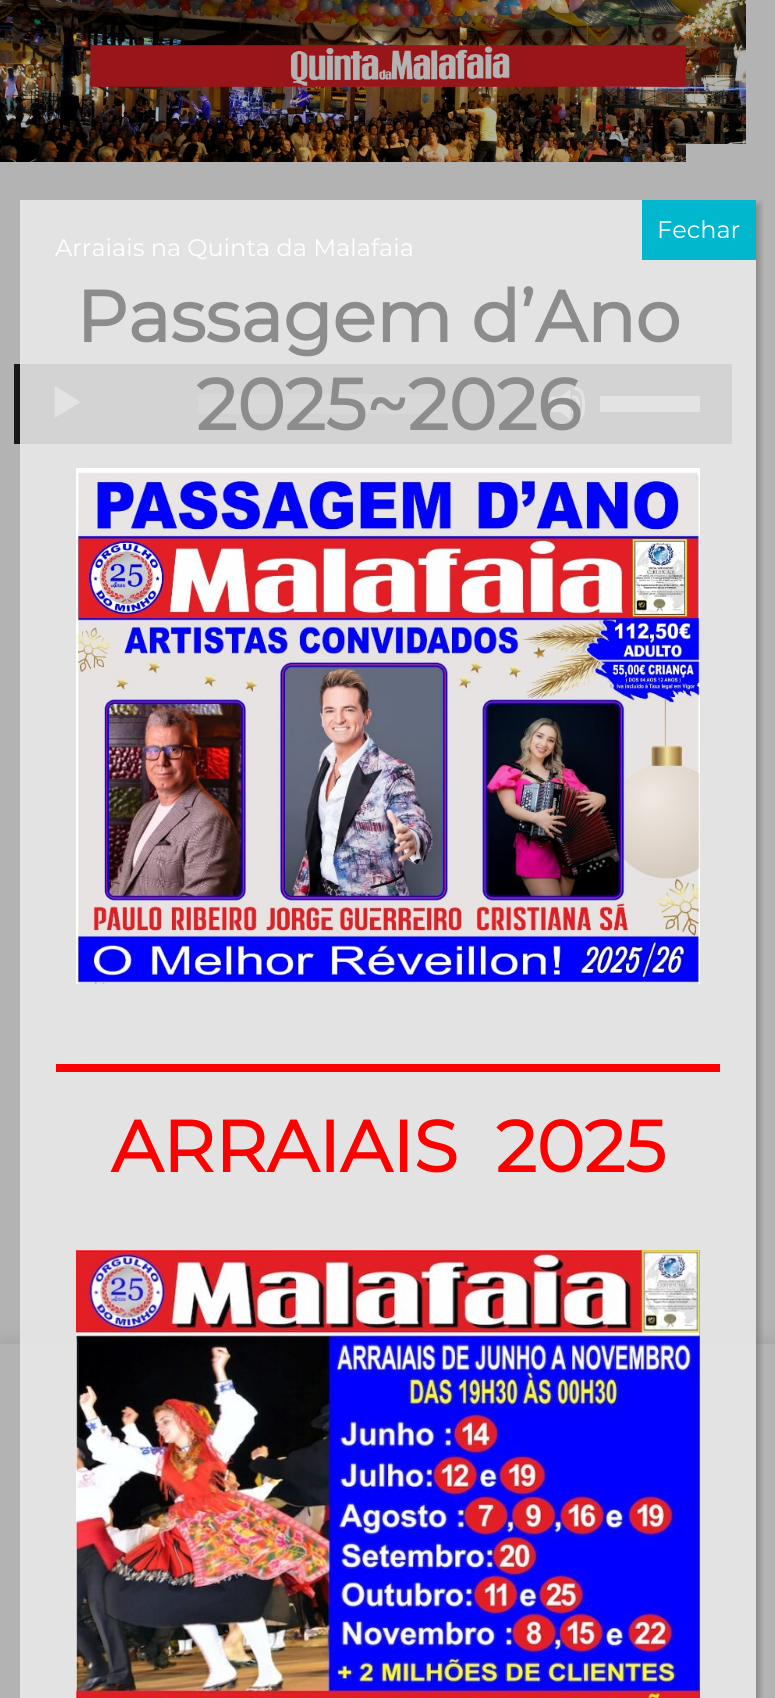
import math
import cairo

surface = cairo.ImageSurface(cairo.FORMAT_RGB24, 775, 1698)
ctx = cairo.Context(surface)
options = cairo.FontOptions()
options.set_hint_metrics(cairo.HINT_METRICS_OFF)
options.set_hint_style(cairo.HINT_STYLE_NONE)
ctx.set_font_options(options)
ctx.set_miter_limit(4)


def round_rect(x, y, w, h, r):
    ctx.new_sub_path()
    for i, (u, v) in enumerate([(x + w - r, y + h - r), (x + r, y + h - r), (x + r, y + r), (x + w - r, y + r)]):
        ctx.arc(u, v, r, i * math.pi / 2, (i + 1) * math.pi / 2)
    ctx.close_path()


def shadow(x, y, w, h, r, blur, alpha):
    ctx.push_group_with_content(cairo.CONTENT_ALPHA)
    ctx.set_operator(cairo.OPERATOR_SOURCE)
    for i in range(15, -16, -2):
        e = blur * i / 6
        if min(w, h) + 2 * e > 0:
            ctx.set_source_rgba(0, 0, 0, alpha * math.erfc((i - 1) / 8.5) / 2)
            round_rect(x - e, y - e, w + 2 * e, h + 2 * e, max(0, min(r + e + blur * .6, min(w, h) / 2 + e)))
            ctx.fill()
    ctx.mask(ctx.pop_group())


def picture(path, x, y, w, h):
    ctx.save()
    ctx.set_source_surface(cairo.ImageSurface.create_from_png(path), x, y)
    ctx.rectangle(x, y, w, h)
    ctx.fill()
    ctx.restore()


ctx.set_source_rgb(0.702, 0.702, 0.702)
ctx.paint()
picture("img1.png", 0, 0, 746, 162)
picture("img2.png", 90, 45, 596, 42)
ctx.set_source_rgb(0.702, 0.702, 0.702)
ctx.rectangle(686, 144, 60, 18)
ctx.fill()
ctx.set_source_rgb(0.094, 0.094, 0.094)
ctx.rectangle(14, 364, 718, 80)
ctx.fill()
picture("img3.png", 54, 386, 26, 32)
ctx.set_source_rgb(0.294, 0.294, 0.294)
ctx.rectangle(198, 394, 238, 20)
ctx.fill()
picture("img4.png", 550, 387, 36, 35)
ctx.set_source_rgb(0.702, 0.702, 0.702)
ctx.rectangle(600, 396, 100, 16)
ctx.fill()
ctx.set_source_rgb(0.471, 0.471, 0.471)
shadow(0, 1342, 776, 354, 0, 10, 0.3)
ctx.set_source_rgb(0.702, 0.702, 0.702)
ctx.rectangle(0, 1344, 775, 354)
ctx.fill()
ctx.save()
ctx.rectangle(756, 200, 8, 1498)
ctx.clip()
ctx.set_source_rgb(0.008, 0.008, 0.008)
shadow(24, 204, 736, 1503, 0, 3, 0.23)
ctx.restore()
ctx.set_source_rgba(0.91, 0.91, 0.91, 0.9)
ctx.rectangle(20, 200, 736, 1498)
ctx.fill()
ctx.set_source_rgb(0, 0.718, 0.804)
ctx.rectangle(642, 200, 114, 60)
ctx.fill()
ctx.select_font_face("Montserrat")
ctx.set_font_size(24)
ctx.set_source_rgb(1, 1, 1)
ctx.move_to(657, 238)
ctx.show_text("Fechar")
ctx.move_to(55, 256)
ctx.show_text("Arraiais na Quinta da Malafaia")
ctx.select_font_face("Montserrat", cairo.FONT_SLANT_NORMAL, cairo.FONT_WEIGHT_BOLD)
ctx.set_font_size(72)
ctx.set_source_rgb(0.549, 0.549, 0.549)
ctx.move_to(76, 342)
ctx.show_text("Passagem d’Ano")
ctx.move_to(196, 430)
ctx.show_text("2025~2026")
picture("img5.png", 76, 468, 624, 516)
ctx.set_source_rgb(1, 0, 0)
ctx.rectangle(56, 1064, 664, 8)
ctx.fill()
ctx.move_to(111, 1172)
ctx.show_text("ARRAIAIS  2025")
picture("img6.png", 76, 1250, 624, 448)
surface.write_to_png("page.png")
